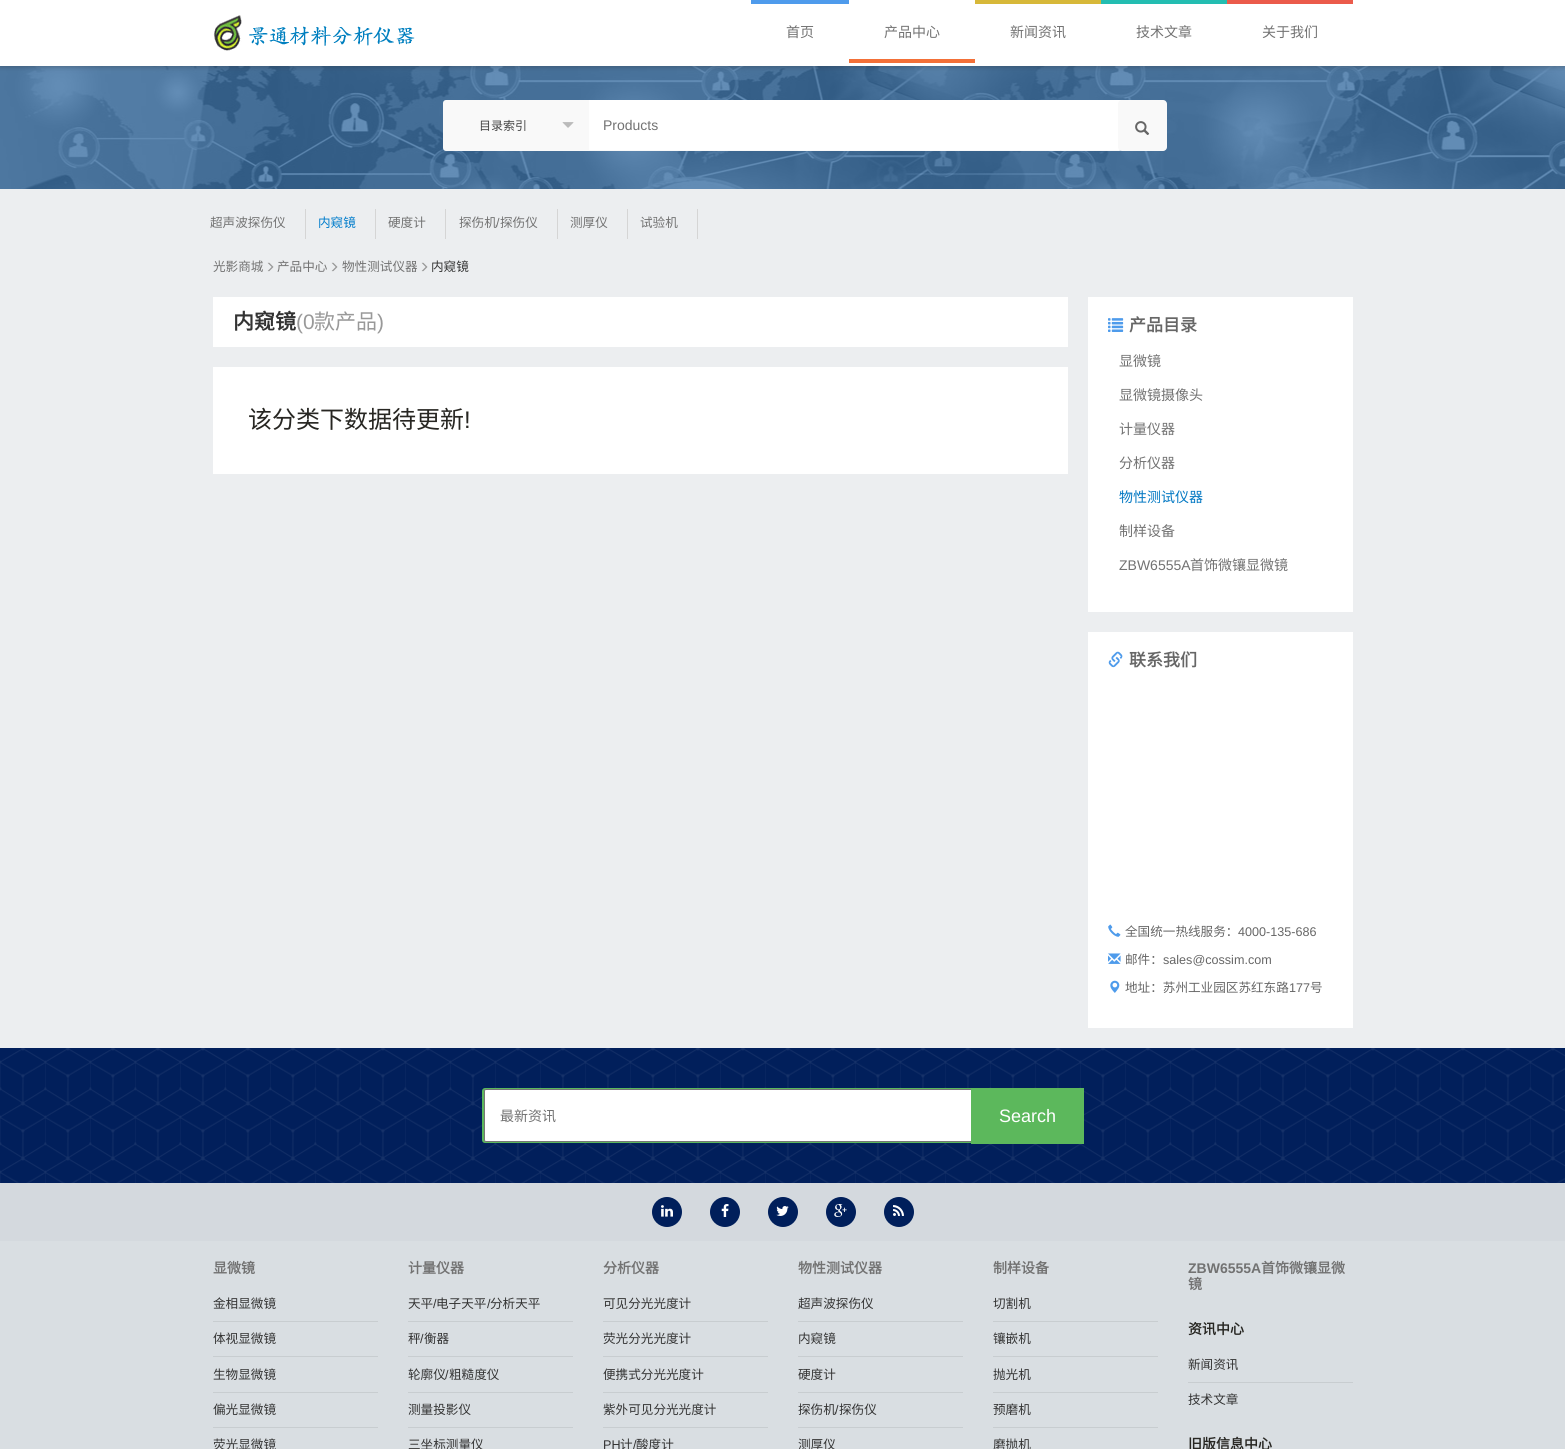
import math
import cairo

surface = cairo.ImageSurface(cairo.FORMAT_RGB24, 1565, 1449)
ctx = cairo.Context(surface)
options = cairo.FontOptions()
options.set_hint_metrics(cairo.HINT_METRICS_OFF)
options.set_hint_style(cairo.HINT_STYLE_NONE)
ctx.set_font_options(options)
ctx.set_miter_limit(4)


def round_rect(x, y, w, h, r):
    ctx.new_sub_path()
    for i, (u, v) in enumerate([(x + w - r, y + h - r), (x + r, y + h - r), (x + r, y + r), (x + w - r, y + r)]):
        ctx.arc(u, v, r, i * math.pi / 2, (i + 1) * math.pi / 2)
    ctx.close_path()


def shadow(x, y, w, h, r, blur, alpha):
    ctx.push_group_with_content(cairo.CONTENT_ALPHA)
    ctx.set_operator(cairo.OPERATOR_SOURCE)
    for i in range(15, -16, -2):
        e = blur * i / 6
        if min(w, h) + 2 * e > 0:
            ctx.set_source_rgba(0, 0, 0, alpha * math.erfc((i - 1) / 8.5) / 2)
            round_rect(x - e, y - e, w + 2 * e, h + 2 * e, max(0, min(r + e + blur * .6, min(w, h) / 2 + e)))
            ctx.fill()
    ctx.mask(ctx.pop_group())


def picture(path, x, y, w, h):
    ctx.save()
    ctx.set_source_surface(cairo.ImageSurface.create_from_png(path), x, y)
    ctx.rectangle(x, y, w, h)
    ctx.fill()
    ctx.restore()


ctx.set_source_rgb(0.922, 0.933, 0.941)
ctx.paint()
picture("img2.png", 0, 66, 1565, 123)
ctx.set_source_rgba(0.239, 0.443, 0.643, 0.8)
ctx.rectangle(0, 66, 1565, 123)
ctx.fill()
ctx.set_source_rgb(0.196, 0.196, 0.196)
shadow(0, 1, 1565, 66, 0, 2.5, 0.35)
ctx.set_source_rgb(1, 1, 1)
ctx.rectangle(0, 0, 1565, 66)
ctx.fill()
picture("img1.png", 213, 15, 202, 36)
ctx.set_source_rgb(0.306, 0.608, 0.922)
ctx.rectangle(751, 0, 98, 4)
ctx.fill()
ctx.select_font_face("Noto Sans CJK SC")
ctx.set_font_size(14)
ctx.set_source_rgb(0.447, 0.447, 0.447)
ctx.move_to(786, 37)
ctx.show_text("首页")
ctx.set_source_rgb(0.953, 0.439, 0.22)
ctx.rectangle(849, 59, 126, 4)
ctx.fill()
ctx.set_source_rgb(0.447, 0.447, 0.447)
ctx.move_to(884, 37)
ctx.show_text("产品中心")
ctx.set_source_rgb(0.843, 0.722, 0.224)
ctx.rectangle(975, 0, 126, 4)
ctx.fill()
ctx.set_source_rgb(0.447, 0.447, 0.447)
ctx.move_to(1010, 37)
ctx.show_text("新闻资讯")
ctx.set_source_rgb(0.137, 0.741, 0.694)
ctx.rectangle(1101, 0, 126, 4)
ctx.fill()
ctx.set_source_rgb(0.447, 0.447, 0.447)
ctx.move_to(1136, 37)
ctx.show_text("技术文章")
ctx.set_source_rgb(0.918, 0.357, 0.294)
ctx.rectangle(1227, 0, 126, 4)
ctx.fill()
ctx.set_source_rgb(0.447, 0.447, 0.447)
ctx.move_to(1262, 37)
ctx.show_text("关于我们")
ctx.set_source_rgb(0.973, 0.973, 0.973)
round_rect(443, 100, 679, 51, 3)
ctx.fill()
ctx.set_font_size(12)
ctx.set_source_rgb(0.267, 0.267, 0.267)
ctx.move_to(479, 130)
ctx.show_text("目录索引")
picture("img3.png", 562, 122, 12, 6)
ctx.set_source_rgb(1, 1, 1)
ctx.rectangle(589, 100, 533, 50)
ctx.fill()
ctx.select_font_face("Liberation Sans")
ctx.set_font_size(14)
ctx.set_source_rgb(0.447, 0.447, 0.447)
ctx.move_to(603, 130)
ctx.show_text("Products")
ctx.set_source_rgb(0.973, 0.973, 0.973)
round_rect(1118, 100, 49, 51, 4)
ctx.fill()
picture("img4.png", 1135, 121, 15, 14)
ctx.set_source_rgb(0.835, 0.835, 0.835)
ctx.rectangle(305, 209, 1, 30)
ctx.fill()
ctx.select_font_face("Noto Sans CJK SC")
ctx.set_font_size(12.6)
ctx.set_source_rgb(0.447, 0.447, 0.447)
ctx.move_to(210, 227)
ctx.show_text("超声波探伤仪")
ctx.set_source_rgb(0.835, 0.835, 0.835)
ctx.rectangle(375, 209, 1, 30)
ctx.fill()
ctx.set_source_rgb(0, 0.486, 0.796)
ctx.move_to(318, 227)
ctx.show_text("内窥镜")
ctx.set_source_rgb(0.835, 0.835, 0.835)
ctx.rectangle(445, 209, 1, 30)
ctx.fill()
ctx.set_source_rgb(0.447, 0.447, 0.447)
ctx.move_to(388, 227)
ctx.show_text("硬度计")
ctx.set_source_rgb(0.835, 0.835, 0.835)
ctx.rectangle(557, 209, 1, 30)
ctx.fill()
ctx.set_source_rgb(0.447, 0.447, 0.447)
ctx.move_to(459, 227)
ctx.show_text("探伤机")
ctx.select_font_face("Liberation Sans")
ctx.move_to(496, 227)
ctx.show_text("/")
ctx.select_font_face("Noto Sans CJK SC")
ctx.move_to(500, 227)
ctx.show_text("探伤仪")
ctx.set_source_rgb(0.835, 0.835, 0.835)
ctx.rectangle(627, 209, 1, 30)
ctx.fill()
ctx.set_source_rgb(0.447, 0.447, 0.447)
ctx.move_to(570, 227)
ctx.show_text("测厚仪")
ctx.set_source_rgb(0.835, 0.835, 0.835)
ctx.rectangle(697, 209, 1, 30)
ctx.fill()
ctx.set_source_rgb(0.447, 0.447, 0.447)
ctx.move_to(640, 227)
ctx.show_text("试验机")
ctx.move_to(213, 271)
ctx.show_text("光影商城")
picture("img5.png", 267, 262, 7, 10)
ctx.move_to(277, 271)
ctx.show_text("产品中心")
picture("img5.png", 331, 262, 7, 10)
ctx.move_to(342, 271)
ctx.show_text("物性测试仪器")
picture("img5.png", 421, 262, 7, 10)
ctx.set_source_rgb(0.2, 0.2, 0.2)
ctx.move_to(431, 271)
ctx.show_text("内窥镜")
ctx.set_source_rgb(1, 1, 1)
ctx.rectangle(213, 297, 855, 50)
ctx.fill()
ctx.select_font_face("Noto Sans CJK SC", cairo.FONT_SLANT_NORMAL, cairo.FONT_WEIGHT_BOLD)
ctx.set_font_size(21)
ctx.set_source_rgb(0.2, 0.2, 0.2)
ctx.move_to(233, 329)
ctx.show_text("内窥镜")
ctx.select_font_face("Liberation Sans")
ctx.set_source_rgb(0.6, 0.6, 0.6)
ctx.move_to(296, 329)
ctx.show_text("(0")
ctx.select_font_face("Noto Sans CJK SC")
ctx.move_to(314, 329)
ctx.show_text("款产品")
ctx.select_font_face("Liberation Sans")
ctx.move_to(377, 329)
ctx.show_text(")")
ctx.set_source_rgb(1, 1, 1)
ctx.rectangle(213, 367, 855, 107)
ctx.fill()
ctx.select_font_face("Noto Sans CJK SC")
ctx.set_font_size(24)
ctx.set_source_rgb(0.153, 0.149, 0.133)
ctx.move_to(248, 428)
ctx.show_text("该分类下数据待更新")
ctx.select_font_face("Liberation Sans")
ctx.move_to(464, 428)
ctx.show_text("!")
ctx.set_source_rgb(1, 1, 1)
ctx.rectangle(1088, 297, 265, 315)
ctx.fill()
picture("img6.png", 1108, 318, 16, 14)
ctx.select_font_face("Noto Sans CJK SC", cairo.FONT_SLANT_NORMAL, cairo.FONT_WEIGHT_BOLD)
ctx.set_font_size(17)
ctx.set_source_rgb(0.4, 0.4, 0.4)
ctx.move_to(1129, 331)
ctx.show_text("产品目录")
ctx.select_font_face("Noto Sans CJK SC")
ctx.set_font_size(14)
ctx.set_source_rgb(0.447, 0.447, 0.447)
ctx.move_to(1119, 366)
ctx.show_text("显微镜")
ctx.move_to(1119, 400)
ctx.show_text("显微镜摄像头")
ctx.move_to(1119, 434)
ctx.show_text("计量仪器")
ctx.move_to(1119, 468)
ctx.show_text("分析仪器")
ctx.set_source_rgb(0.008, 0.471, 0.765)
ctx.move_to(1119, 502)
ctx.show_text("物性测试仪器")
ctx.set_source_rgb(0.447, 0.447, 0.447)
ctx.move_to(1119, 536)
ctx.show_text("制样设备")
ctx.select_font_face("Liberation Sans")
ctx.move_to(1119, 570)
ctx.show_text("ZBW6555A")
ctx.select_font_face("Noto Sans CJK SC")
ctx.move_to(1190, 570)
ctx.show_text("首饰微镶显微镜")
ctx.set_source_rgb(1, 1, 1)
ctx.rectangle(1088, 632, 265, 396)
ctx.fill()
picture("img7.png", 1108, 651, 15, 17)
ctx.select_font_face("Noto Sans CJK SC", cairo.FONT_SLANT_NORMAL, cairo.FONT_WEIGHT_BOLD)
ctx.set_font_size(17)
ctx.set_source_rgb(0.4, 0.4, 0.4)
ctx.move_to(1129, 666)
ctx.show_text("联系我们")
picture("img8.png", 1108, 924, 13, 13)
ctx.select_font_face("Noto Sans CJK SC")
ctx.set_font_size(12.6)
ctx.move_to(1125, 936)
ctx.show_text("全国统一热线服务：")
ctx.select_font_face("Liberation Sans")
ctx.move_to(1238, 936)
ctx.show_text("4000-135-686")
picture("img9.png", 1108, 953, 13, 11)
ctx.select_font_face("Noto Sans CJK SC")
ctx.move_to(1125, 964)
ctx.show_text("邮件：")
ctx.select_font_face("Liberation Sans")
ctx.move_to(1163, 964)
ctx.show_text("sales@cossim.com")
picture("img10.png", 1110, 980, 10, 13)
ctx.select_font_face("Noto Sans CJK SC")
ctx.move_to(1125, 992)
ctx.show_text("地址：苏州工业园区苏红东路")
ctx.select_font_face("Liberation Sans")
ctx.move_to(1289, 992)
ctx.show_text("177")
ctx.select_font_face("Noto Sans CJK SC")
ctx.move_to(1310, 992)
ctx.show_text("号")
ctx.set_source_rgb(0.004, 0.122, 0.357)
ctx.rectangle(0, 1048, 1565, 135)
ctx.fill()
picture("img11.png", 0, 1048, 1565, 135)
ctx.set_source_rgb(0.361, 0.722, 0.361)
round_rect(482, 1088, 602, 55, 3)
ctx.fill()
ctx.set_source_rgb(1, 1, 1)
round_rect(484.5, 1089.5, 599, 52, 1.5)
ctx.fill_preserve()
ctx.set_source_rgb(0.463, 0.463, 0.463)
ctx.set_line_width(1)
ctx.stroke()
ctx.set_font_size(14)
ctx.set_source_rgb(0.447, 0.447, 0.447)
ctx.move_to(500, 1121)
ctx.show_text("最新资讯")
ctx.set_source_rgb(0.361, 0.722, 0.361)
ctx.rectangle(971, 1088, 113, 56)
ctx.fill()
ctx.select_font_face("Liberation Sans")
ctx.set_font_size(18)
ctx.set_source_rgb(1, 1, 1)
ctx.move_to(999, 1122)
ctx.show_text("Search")
ctx.set_source_rgb(0.831, 0.851, 0.871)
ctx.rectangle(0, 1183, 1565, 58)
ctx.fill()
ctx.set_source_rgb(0, 0.122, 0.357)
ctx.arc(667, 1212, 15, 0, 2 * math.pi)
ctx.fill()
picture("img12.png", 661, 1205, 12, 12)
ctx.arc(725, 1212, 15, 0, 2 * math.pi)
ctx.fill()
picture("img13.png", 721, 1204, 8, 13)
ctx.arc(783, 1212, 15, 0, 2 * math.pi)
ctx.fill()
picture("img14.png", 776, 1206, 13, 10)
ctx.arc(841, 1212, 15, 0, 2 * math.pi)
ctx.fill()
picture("img15.png", 834, 1204, 13, 13)
ctx.arc(899, 1212, 15, 0, 2 * math.pi)
ctx.fill()
picture("img16.png", 893, 1205, 11, 11)
ctx.set_source_rgb(0.851, 0.871, 0.886)
ctx.rectangle(0, 1241, 1565, 208)
ctx.fill()
ctx.select_font_face("Noto Sans CJK SC", cairo.FONT_SLANT_NORMAL, cairo.FONT_WEIGHT_BOLD)
ctx.set_font_size(14)
ctx.set_source_rgb(0.447, 0.447, 0.447)
ctx.move_to(213, 1273)
ctx.show_text("显微镜")
ctx.set_source_rgb(0.784, 0.804, 0.816)
ctx.rectangle(213, 1321, 165, 1)
ctx.fill()
ctx.select_font_face("Noto Sans CJK SC")
ctx.set_font_size(12.6)
ctx.set_source_rgb(0.2, 0.2, 0.2)
ctx.move_to(213, 1308)
ctx.show_text("金相显微镜")
ctx.set_source_rgb(0.784, 0.804, 0.816)
ctx.rectangle(213, 1356, 165, 1)
ctx.fill()
ctx.set_source_rgb(0.2, 0.2, 0.2)
ctx.move_to(213, 1343)
ctx.show_text("体视显微镜")
ctx.set_source_rgb(0.784, 0.804, 0.816)
ctx.rectangle(213, 1392, 165, 1)
ctx.fill()
ctx.set_source_rgb(0.2, 0.2, 0.2)
ctx.move_to(213, 1379)
ctx.show_text("生物显微镜")
ctx.set_source_rgb(0.784, 0.804, 0.816)
ctx.rectangle(213, 1427, 165, 1)
ctx.fill()
ctx.set_source_rgb(0.2, 0.2, 0.2)
ctx.move_to(213, 1414)
ctx.show_text("偏光显微镜")
ctx.move_to(213, 1449)
ctx.show_text("荧光显微镜")
ctx.select_font_face("Noto Sans CJK SC", cairo.FONT_SLANT_NORMAL, cairo.FONT_WEIGHT_BOLD)
ctx.set_font_size(14)
ctx.set_source_rgb(0.447, 0.447, 0.447)
ctx.move_to(408, 1273)
ctx.show_text("计量仪器")
ctx.set_source_rgb(0.784, 0.804, 0.816)
ctx.rectangle(408, 1321, 165, 1)
ctx.fill()
ctx.select_font_face("Noto Sans CJK SC")
ctx.set_font_size(12.6)
ctx.set_source_rgb(0.2, 0.2, 0.2)
ctx.move_to(408, 1308)
ctx.show_text("天平")
ctx.select_font_face("Liberation Sans")
ctx.move_to(433, 1308)
ctx.show_text("/")
ctx.select_font_face("Noto Sans CJK SC")
ctx.move_to(436, 1308)
ctx.show_text("电子天平")
ctx.select_font_face("Liberation Sans")
ctx.move_to(487, 1308)
ctx.show_text("/")
ctx.select_font_face("Noto Sans CJK SC")
ctx.move_to(490, 1308)
ctx.show_text("分析天平")
ctx.set_source_rgb(0.784, 0.804, 0.816)
ctx.rectangle(408, 1356, 165, 1)
ctx.fill()
ctx.set_source_rgb(0.2, 0.2, 0.2)
ctx.move_to(408, 1343)
ctx.show_text("秤")
ctx.select_font_face("Liberation Sans")
ctx.move_to(420, 1343)
ctx.show_text("/")
ctx.select_font_face("Noto Sans CJK SC")
ctx.move_to(424, 1343)
ctx.show_text("衡器")
ctx.set_source_rgb(0.784, 0.804, 0.816)
ctx.rectangle(408, 1392, 165, 1)
ctx.fill()
ctx.set_source_rgb(0.2, 0.2, 0.2)
ctx.move_to(408, 1379)
ctx.show_text("轮廓仪")
ctx.select_font_face("Liberation Sans")
ctx.move_to(445, 1379)
ctx.show_text("/")
ctx.select_font_face("Noto Sans CJK SC")
ctx.move_to(449, 1379)
ctx.show_text("粗糙度仪")
ctx.set_source_rgb(0.784, 0.804, 0.816)
ctx.rectangle(408, 1427, 165, 1)
ctx.fill()
ctx.set_source_rgb(0.2, 0.2, 0.2)
ctx.move_to(408, 1414)
ctx.show_text("测量投影仪")
ctx.move_to(408, 1449)
ctx.show_text("三坐标测量仪")
ctx.select_font_face("Noto Sans CJK SC", cairo.FONT_SLANT_NORMAL, cairo.FONT_WEIGHT_BOLD)
ctx.set_font_size(14)
ctx.set_source_rgb(0.447, 0.447, 0.447)
ctx.move_to(603, 1273)
ctx.show_text("分析仪器")
ctx.set_source_rgb(0.784, 0.804, 0.816)
ctx.rectangle(603, 1321, 165, 1)
ctx.fill()
ctx.select_font_face("Noto Sans CJK SC")
ctx.set_font_size(12.6)
ctx.set_source_rgb(0.2, 0.2, 0.2)
ctx.move_to(603, 1308)
ctx.show_text("可见分光光度计")
ctx.set_source_rgb(0.784, 0.804, 0.816)
ctx.rectangle(603, 1356, 165, 1)
ctx.fill()
ctx.set_source_rgb(0.2, 0.2, 0.2)
ctx.move_to(603, 1343)
ctx.show_text("荧光分光光度计")
ctx.set_source_rgb(0.784, 0.804, 0.816)
ctx.rectangle(603, 1392, 165, 1)
ctx.fill()
ctx.set_source_rgb(0.2, 0.2, 0.2)
ctx.move_to(603, 1379)
ctx.show_text("便携式分光光度计")
ctx.set_source_rgb(0.784, 0.804, 0.816)
ctx.rectangle(603, 1427, 165, 1)
ctx.fill()
ctx.set_source_rgb(0.2, 0.2, 0.2)
ctx.move_to(603, 1414)
ctx.show_text("紫外可见分光光度计")
ctx.select_font_face("Liberation Sans")
ctx.move_to(603, 1449)
ctx.show_text("PH")
ctx.select_font_face("Noto Sans CJK SC")
ctx.move_to(620, 1449)
ctx.show_text("计")
ctx.select_font_face("Liberation Sans")
ctx.move_to(633, 1449)
ctx.show_text("/")
ctx.select_font_face("Noto Sans CJK SC")
ctx.move_to(636, 1449)
ctx.show_text("酸度计")
ctx.select_font_face("Noto Sans CJK SC", cairo.FONT_SLANT_NORMAL, cairo.FONT_WEIGHT_BOLD)
ctx.set_font_size(14)
ctx.set_source_rgb(0.447, 0.447, 0.447)
ctx.move_to(798, 1273)
ctx.show_text("物性测试仪器")
ctx.set_source_rgb(0.784, 0.804, 0.816)
ctx.rectangle(798, 1321, 165, 1)
ctx.fill()
ctx.select_font_face("Noto Sans CJK SC")
ctx.set_font_size(12.6)
ctx.set_source_rgb(0.2, 0.2, 0.2)
ctx.move_to(798, 1308)
ctx.show_text("超声波探伤仪")
ctx.set_source_rgb(0.784, 0.804, 0.816)
ctx.rectangle(798, 1356, 165, 1)
ctx.fill()
ctx.set_source_rgb(0.2, 0.2, 0.2)
ctx.move_to(798, 1343)
ctx.show_text("内窥镜")
ctx.set_source_rgb(0.784, 0.804, 0.816)
ctx.rectangle(798, 1392, 165, 1)
ctx.fill()
ctx.set_source_rgb(0.2, 0.2, 0.2)
ctx.move_to(798, 1379)
ctx.show_text("硬度计")
ctx.set_source_rgb(0.784, 0.804, 0.816)
ctx.rectangle(798, 1427, 165, 1)
ctx.fill()
ctx.set_source_rgb(0.2, 0.2, 0.2)
ctx.move_to(798, 1414)
ctx.show_text("探伤机")
ctx.select_font_face("Liberation Sans")
ctx.move_to(835, 1414)
ctx.show_text("/")
ctx.select_font_face("Noto Sans CJK SC")
ctx.move_to(839, 1414)
ctx.show_text("探伤仪")
ctx.move_to(798, 1449)
ctx.show_text("测厚仪")
ctx.select_font_face("Noto Sans CJK SC", cairo.FONT_SLANT_NORMAL, cairo.FONT_WEIGHT_BOLD)
ctx.set_font_size(14)
ctx.set_source_rgb(0.447, 0.447, 0.447)
ctx.move_to(993, 1273)
ctx.show_text("制样设备")
ctx.set_source_rgb(0.784, 0.804, 0.816)
ctx.rectangle(993, 1321, 165, 1)
ctx.fill()
ctx.select_font_face("Noto Sans CJK SC")
ctx.set_font_size(12.6)
ctx.set_source_rgb(0.2, 0.2, 0.2)
ctx.move_to(993, 1308)
ctx.show_text("切割机")
ctx.set_source_rgb(0.784, 0.804, 0.816)
ctx.rectangle(993, 1356, 165, 1)
ctx.fill()
ctx.set_source_rgb(0.2, 0.2, 0.2)
ctx.move_to(993, 1343)
ctx.show_text("镶嵌机")
ctx.set_source_rgb(0.784, 0.804, 0.816)
ctx.rectangle(993, 1392, 165, 1)
ctx.fill()
ctx.set_source_rgb(0.2, 0.2, 0.2)
ctx.move_to(993, 1379)
ctx.show_text("抛光机")
ctx.set_source_rgb(0.784, 0.804, 0.816)
ctx.rectangle(993, 1427, 165, 1)
ctx.fill()
ctx.set_source_rgb(0.2, 0.2, 0.2)
ctx.move_to(993, 1414)
ctx.show_text("预磨机")
ctx.move_to(993, 1449)
ctx.show_text("磨抛机")
ctx.select_font_face("Liberation Sans", cairo.FONT_SLANT_NORMAL, cairo.FONT_WEIGHT_BOLD)
ctx.set_font_size(14)
ctx.set_source_rgb(0.447, 0.447, 0.447)
ctx.move_to(1188, 1273)
ctx.show_text("ZBW6555A")
ctx.select_font_face("Noto Sans CJK SC", cairo.FONT_SLANT_NORMAL, cairo.FONT_WEIGHT_BOLD)
ctx.move_to(1261, 1273)
ctx.show_text("首饰微镶显微")
ctx.move_to(1188, 1289)
ctx.show_text("镜")
ctx.set_source_rgb(0.153, 0.149, 0.133)
ctx.move_to(1188, 1334)
ctx.show_text("资讯中心")
ctx.set_source_rgb(0.784, 0.804, 0.816)
ctx.rectangle(1188, 1382, 165, 1)
ctx.fill()
ctx.select_font_face("Noto Sans CJK SC")
ctx.set_font_size(12.6)
ctx.set_source_rgb(0.2, 0.2, 0.2)
ctx.move_to(1188, 1369)
ctx.show_text("新闻资讯")
ctx.move_to(1188, 1404)
ctx.show_text("技术文章")
ctx.select_font_face("Noto Sans CJK SC", cairo.FONT_SLANT_NORMAL, cairo.FONT_WEIGHT_BOLD)
ctx.set_font_size(14)
ctx.set_source_rgb(0.153, 0.149, 0.133)
ctx.move_to(1188, 1449)
ctx.show_text("旧版信息中心")
surface.write_to_png("page.png")
